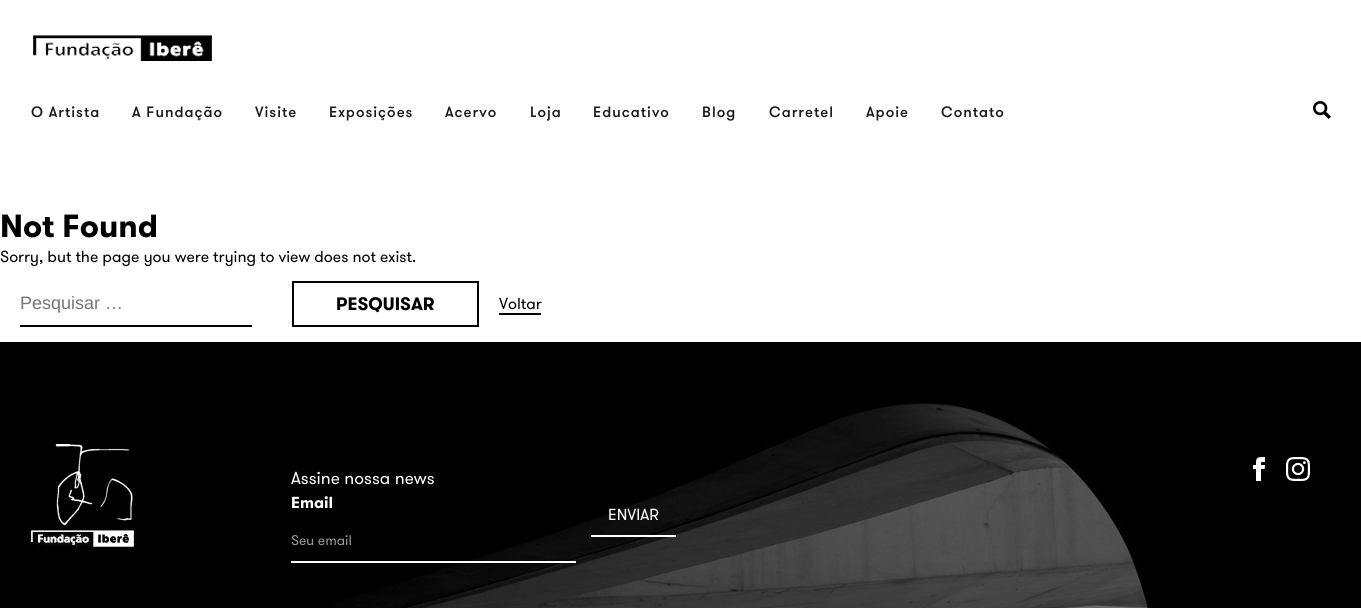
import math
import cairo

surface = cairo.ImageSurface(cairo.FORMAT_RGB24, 1361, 608)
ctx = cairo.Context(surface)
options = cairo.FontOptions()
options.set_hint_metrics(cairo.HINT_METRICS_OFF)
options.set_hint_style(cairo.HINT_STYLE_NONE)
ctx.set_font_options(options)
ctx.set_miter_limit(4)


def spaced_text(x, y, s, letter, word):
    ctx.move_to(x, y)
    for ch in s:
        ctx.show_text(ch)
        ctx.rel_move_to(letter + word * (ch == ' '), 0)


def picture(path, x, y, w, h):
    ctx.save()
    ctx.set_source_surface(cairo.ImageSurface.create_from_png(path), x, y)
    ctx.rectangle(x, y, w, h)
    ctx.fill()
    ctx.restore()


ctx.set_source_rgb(1, 1, 1)
ctx.paint()
picture("img1.png", 33, 35, 179, 26)
ctx.select_font_face("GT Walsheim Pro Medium")
ctx.set_font_size(15)
ctx.set_source_rgb(0.102, 0.094, 0.094)
spaced_text(31, 117, "O Artista", 1, 0)
spaced_text(132, 117, "A Fundação", 1, 0)
spaced_text(255, 117, "Visite", 1, 0)
spaced_text(329, 117, "Exposições", 1, 0)
spaced_text(445, 117, "Acervo", 1, 0)
spaced_text(530, 117, "Loja", 1, 0)
spaced_text(593, 117, "Educativo", 1, 0)
spaced_text(702, 117, "Blog", 1, 0)
spaced_text(769, 117, "Carretel", 1, 0)
spaced_text(866, 117, "Apoie", 1, 0)
spaced_text(941, 117, "Contato", 1, 0)
picture("img2.png", 1313, 101, 18, 18)
ctx.select_font_face("GT Walsheim Pro", cairo.FONT_SLANT_NORMAL, cairo.FONT_WEIGHT_BOLD)
ctx.set_font_size(32)
ctx.set_source_rgb(0, 0, 0)
ctx.move_to(0, 237)
ctx.show_text("Not Found")
ctx.select_font_face("GT Walsheim Pro")
ctx.set_font_size(16)
ctx.move_to(0, 262)
ctx.show_text("Sorry, but the page you were trying to view does not exist.")
ctx.rectangle(20, 325, 232, 2)
ctx.fill()
ctx.select_font_face("Liberation Sans")
ctx.set_font_size(18)
ctx.set_source_rgb(0.459, 0.459, 0.459)
ctx.move_to(20, 309)
ctx.show_text("Pesquisar …")
ctx.rectangle(293, 282, 185, 44)
ctx.set_source_rgb(0, 0, 0)
ctx.stroke()
ctx.select_font_face("GT Walsheim Pro", cairo.FONT_SLANT_NORMAL, cairo.FONT_WEIGHT_BOLD)
ctx.move_to(336, 310)
ctx.show_text("PESQUISAR")
ctx.rectangle(499, 313, 42, 2)
ctx.fill()
ctx.select_font_face("GT Walsheim Pro")
ctx.set_font_size(16)
ctx.move_to(499, 309)
ctx.show_text("Voltar")
ctx.rectangle(0, 342, 1361, 266)
ctx.fill()
picture("img3.png", 333, 403, 815, 205)
picture("img4.png", 31, 444, 103, 103)
ctx.set_font_size(17.5)
ctx.set_source_rgb(1, 1, 1)
ctx.move_to(291, 484)
ctx.show_text("Assine nossa news")
ctx.select_font_face("GT Walsheim Pro", cairo.FONT_SLANT_NORMAL, cairo.FONT_WEIGHT_BOLD)
ctx.set_font_size(16)
ctx.move_to(291, 508)
ctx.show_text("Email")
ctx.rectangle(291, 561, 285, 2)
ctx.fill()
ctx.select_font_face("GT Walsheim Pro")
ctx.set_font_size(14)
ctx.set_source_rgb(0.6, 0.6, 0.6)
ctx.move_to(291, 545)
ctx.show_text("Seu email")
ctx.set_source_rgb(1, 1, 1)
ctx.rectangle(591, 535, 85, 2)
ctx.fill()
ctx.set_font_size(16)
ctx.move_to(608, 520)
ctx.show_text("ENVIAR")
picture("img5.png", 1253, 457, 12, 24)
picture("img6.png", 1286, 457, 24, 24)
surface.write_to_png("page.png")
